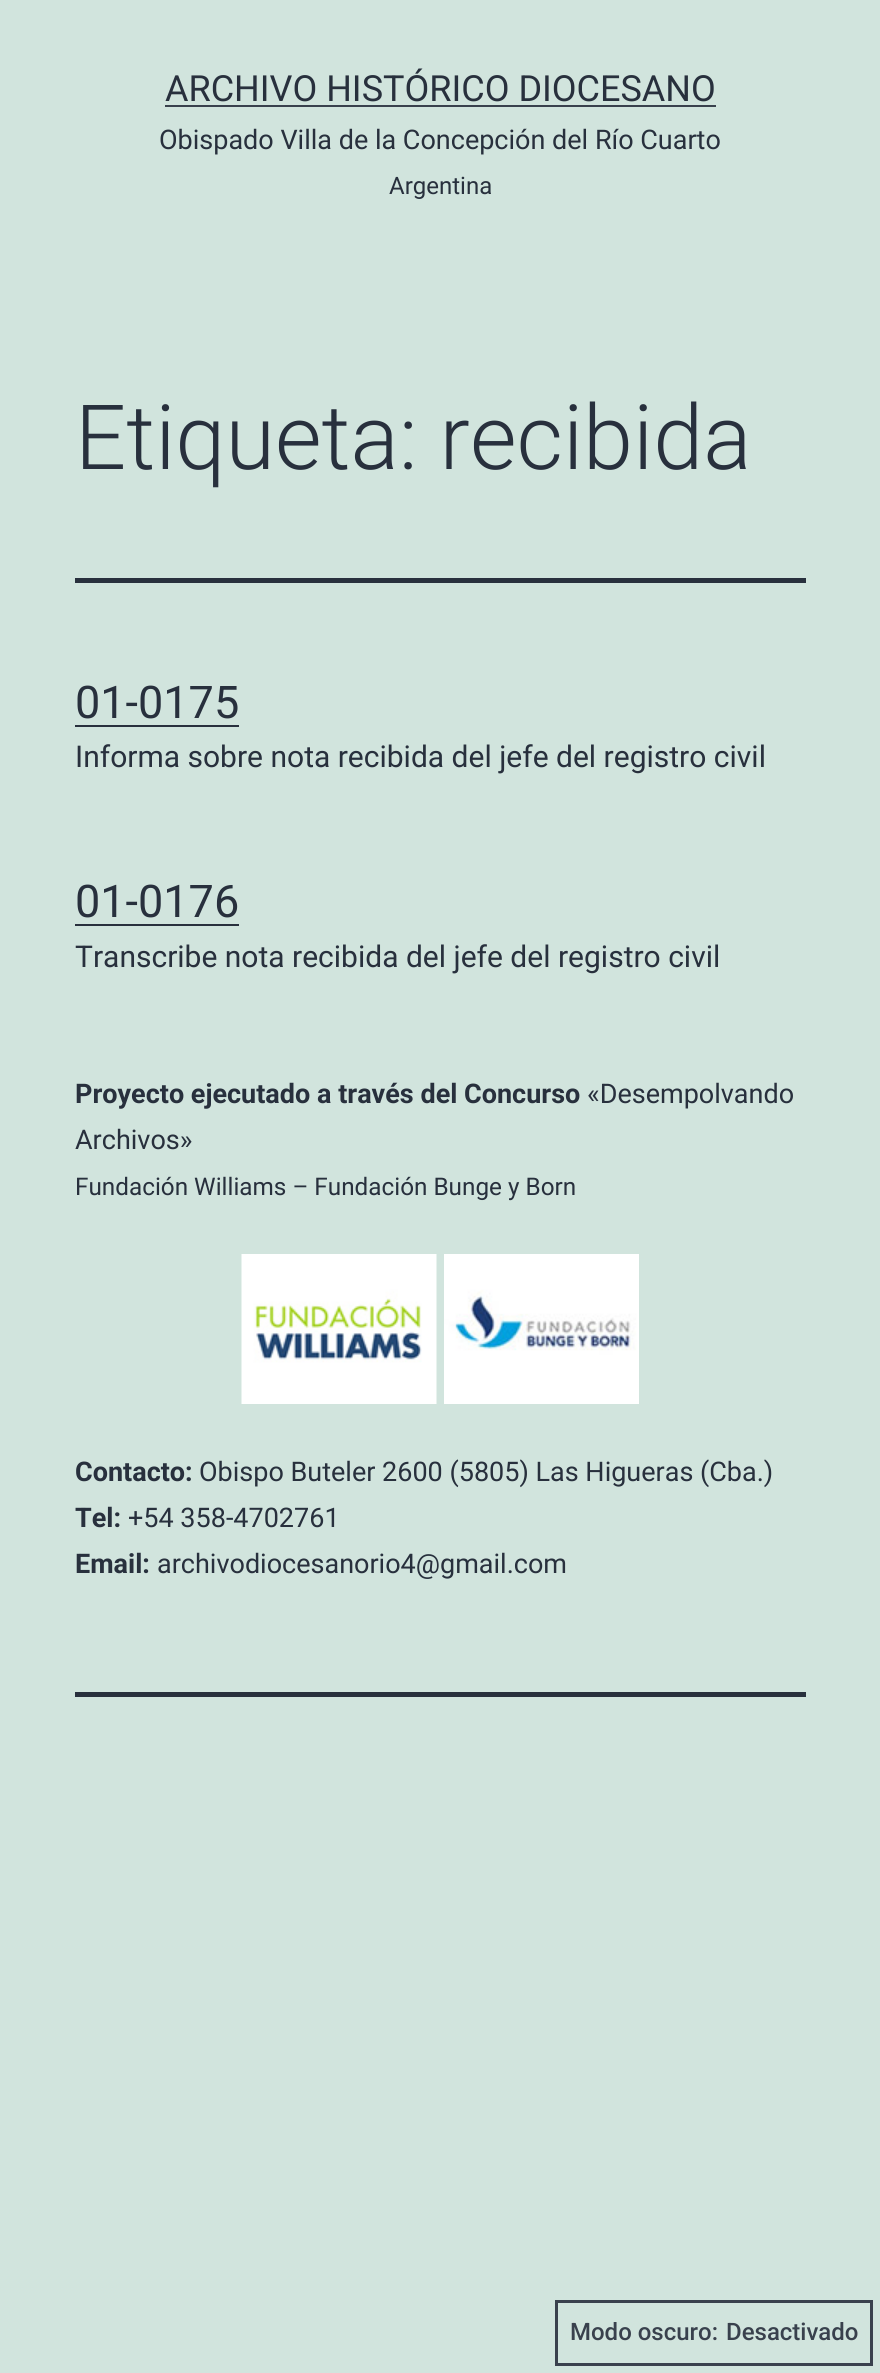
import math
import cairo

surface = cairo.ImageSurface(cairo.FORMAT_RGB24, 880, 2373)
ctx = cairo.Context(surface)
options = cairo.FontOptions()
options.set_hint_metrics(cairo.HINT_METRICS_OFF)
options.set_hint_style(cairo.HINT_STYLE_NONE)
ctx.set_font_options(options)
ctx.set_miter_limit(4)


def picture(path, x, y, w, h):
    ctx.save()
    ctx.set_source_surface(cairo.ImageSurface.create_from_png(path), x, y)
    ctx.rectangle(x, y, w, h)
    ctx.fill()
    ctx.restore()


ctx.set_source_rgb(0.82, 0.894, 0.867)
ctx.paint()
ctx.select_font_face("Roboto")
ctx.set_font_size(36)
ctx.set_source_rgb(0.157, 0.188, 0.239)
ctx.move_to(165, 101)
ctx.show_text("ARCHIVO HISTÓRICO DIOCESANO")
ctx.set_source_rgb(0.224, 0.255, 0.302)
ctx.rectangle(165, 105, 551, 2)
ctx.fill()
ctx.set_font_size(27)
ctx.set_source_rgb(0.157, 0.188, 0.239)
ctx.move_to(159, 149)
ctx.show_text("Obispado Villa de la Concepción del Río Cuarto")
ctx.set_font_size(24)
ctx.move_to(389, 194)
ctx.show_text("Argentina")
ctx.rectangle(75, 578, 731, 5)
ctx.fill()
ctx.select_font_face("Roboto Light")
ctx.set_font_size(90)
ctx.move_to(75, 469)
ctx.show_text("Etiqueta: recibida")
ctx.select_font_face("Roboto")
ctx.set_font_size(45)
ctx.move_to(75, 718)
ctx.show_text("01-0175")
ctx.rectangle(75, 725, 164, 2)
ctx.fill()
ctx.set_font_size(30)
ctx.move_to(75, 767)
ctx.show_text("Informa sobre nota recibida del jefe del registro civil")
ctx.set_font_size(45)
ctx.move_to(75, 917)
ctx.show_text("01-0176")
ctx.rectangle(75, 924, 164, 2)
ctx.fill()
ctx.set_font_size(30)
ctx.move_to(75, 967)
ctx.show_text("Transcribe nota recibida del jefe del registro civil")
ctx.select_font_face("Roboto", cairo.FONT_SLANT_NORMAL, cairo.FONT_WEIGHT_BOLD)
ctx.set_font_size(27)
ctx.move_to(75, 1103)
ctx.show_text("Proyecto ejecutado a través del Concurso")
ctx.select_font_face("Roboto")
ctx.move_to(587, 1103)
ctx.show_text("«Desempolvando")
ctx.move_to(75, 1149)
ctx.show_text("Archivos»")
ctx.set_font_size(24.3)
ctx.move_to(75, 1195)
ctx.show_text("Fundación Williams – Fundación Bunge y Born")
picture("img1.png", 241, 1254, 196, 150)
picture("img2.png", 444, 1254, 195, 150)
ctx.select_font_face("Roboto", cairo.FONT_SLANT_NORMAL, cairo.FONT_WEIGHT_BOLD)
ctx.set_font_size(27)
ctx.move_to(75, 1481)
ctx.show_text("Contacto:")
ctx.select_font_face("Roboto")
ctx.move_to(199, 1481)
ctx.show_text("Obispo Buteler 2600 (5805) Las Higueras (Cba.)")
ctx.select_font_face("Roboto", cairo.FONT_SLANT_NORMAL, cairo.FONT_WEIGHT_BOLD)
ctx.move_to(75, 1527)
ctx.show_text("Tel:")
ctx.select_font_face("Roboto")
ctx.move_to(128, 1527)
ctx.show_text("+54 358-4702761")
ctx.select_font_face("Roboto", cairo.FONT_SLANT_NORMAL, cairo.FONT_WEIGHT_BOLD)
ctx.move_to(75, 1573)
ctx.show_text("Email:")
ctx.select_font_face("Roboto")
ctx.move_to(157, 1573)
ctx.show_text("archivodiocesanorio4@gmail.com")
ctx.rectangle(75, 1692, 731, 5)
ctx.fill()
ctx.rectangle(556.5, 2301.5, 315, 63)
ctx.set_source_rgb(0.224, 0.255, 0.302)
ctx.set_line_width(3)
ctx.stroke()
ctx.select_font_face("Roboto Medium")
ctx.set_font_size(24)
ctx.move_to(570, 2340)
ctx.show_text("Modo oscuro:")
ctx.move_to(726, 2340)
ctx.show_text("Desactivado")
surface.write_to_png("page.png")
